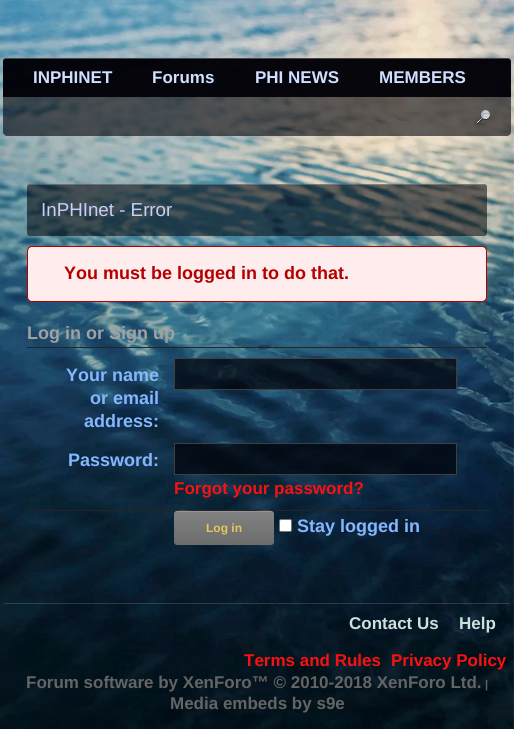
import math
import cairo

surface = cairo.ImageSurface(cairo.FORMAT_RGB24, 514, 729)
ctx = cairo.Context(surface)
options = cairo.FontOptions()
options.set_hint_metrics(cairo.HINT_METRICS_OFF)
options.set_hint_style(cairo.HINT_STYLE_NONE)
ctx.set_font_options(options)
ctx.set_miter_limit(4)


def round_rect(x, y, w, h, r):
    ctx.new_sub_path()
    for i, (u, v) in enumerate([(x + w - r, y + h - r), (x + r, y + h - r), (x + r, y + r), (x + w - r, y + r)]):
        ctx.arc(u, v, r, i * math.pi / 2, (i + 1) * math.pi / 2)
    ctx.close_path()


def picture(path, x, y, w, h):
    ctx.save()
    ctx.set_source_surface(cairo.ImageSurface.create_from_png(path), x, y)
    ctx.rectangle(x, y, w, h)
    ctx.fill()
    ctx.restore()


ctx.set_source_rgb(1, 1, 1)
ctx.paint()
picture("img1.png", 0, 0, 514, 729)
picture("img2.png", 32, 0, 482, 729)
ctx.set_source_rgba(0, 0, 0.027, 0.97)
ctx.new_path()
ctx.move_to(6, 58)
ctx.line_to(508, 58)
ctx.curve_to(509.5, 58, 511, 59.5, 511, 61)
ctx.line_to(511, 97)
ctx.line_to(3, 97)
ctx.line_to(3, 61)
ctx.curve_to(3, 59.5, 4.5, 58, 6, 58)
ctx.close_path()
ctx.fill()
ctx.set_source_rgba(1, 1, 1, 0.25)
ctx.new_path()
ctx.move_to(6, 59)
ctx.line_to(508, 59)
ctx.curve_to(510, 59, 511, 60, 511, 62)
ctx.line_to(511, 60)
ctx.line_to(509, 58)
ctx.line_to(6, 58)
ctx.curve_to(4, 58, 3, 60, 3, 62)
ctx.curve_to(3, 60, 4, 59, 6, 59)
ctx.close_path()
ctx.fill()
ctx.select_font_face("Liberation Sans", cairo.FONT_SLANT_NORMAL, cairo.FONT_WEIGHT_BOLD)
ctx.set_font_size(17)
ctx.set_source_rgb(0.816, 0.871, 1)
ctx.move_to(33, 83)
ctx.show_text("INPHINET")
ctx.move_to(152, 83)
ctx.show_text("Forums")
ctx.move_to(255, 83)
ctx.show_text("PHI NEWS")
ctx.move_to(379, 83)
ctx.show_text("MEMBERS")
ctx.set_source_rgba(0, 0, 0.027, 0.6)
ctx.new_path()
ctx.move_to(3, 97)
ctx.line_to(511, 97)
ctx.line_to(511, 132)
ctx.curve_to(511, 134, 509, 136, 507, 136)
ctx.line_to(7, 136)
ctx.curve_to(5, 136, 3, 134, 3, 132)
ctx.close_path()
ctx.fill()
picture("img3.png", 476, 109, 15, 16)
picture("img4.png", 30, 214, 430, 1)
ctx.set_source_rgba(0, 0, 0.027, 0.55)
ctx.new_path()
ctx.move_to(30, 184)
ctx.curve_to(28, 184, 27, 185, 27, 187)
ctx.line_to(27, 233)
ctx.curve_to(27, 235, 28, 236, 30, 236)
ctx.line_to(484, 236)
ctx.curve_to(486, 236, 487, 235, 487, 233)
ctx.line_to(487, 187)
ctx.curve_to(487, 185, 486, 184, 484, 184)
ctx.close_path()
ctx.fill()
ctx.set_source_rgba(1, 1, 1, 0.2)
ctx.new_path()
ctx.move_to(30, 185)
ctx.line_to(484, 185)
ctx.curve_to(486, 185, 487, 186, 487, 188)
ctx.curve_to(487, 186, 486, 184, 484, 184)
ctx.line_to(29, 184)
ctx.line_to(27, 186)
ctx.line_to(27, 188)
ctx.curve_to(27, 186, 28, 185, 30, 185)
ctx.close_path()
ctx.fill()
ctx.select_font_face("Liberation Sans")
ctx.set_font_size(18.75)
ctx.set_source_rgb(0.792, 0.804, 0.976)
ctx.move_to(41, 216)
ctx.show_text("InPHInet - Error")
ctx.set_source_rgb(1, 0.922, 0.922)
round_rect(27.5, 246.5, 459, 55, 4.5)
ctx.fill_preserve()
ctx.set_source_rgb(0.706, 0, 0)
ctx.set_line_width(1)
ctx.stroke()
ctx.select_font_face("Liberation Sans", cairo.FONT_SLANT_NORMAL, cairo.FONT_WEIGHT_BOLD)
ctx.set_font_size(18)
ctx.move_to(64, 279)
ctx.show_text("You must be logged in to do that.")
ctx.set_source_rgb(0.145, 0.145, 0.145)
ctx.rectangle(27, 347, 460, 1)
ctx.fill()
ctx.set_source_rgb(0.631, 0.631, 0.631)
ctx.move_to(27, 339)
ctx.show_text("Log in or Sign up")
ctx.set_source_rgb(0.522, 0.714, 1)
ctx.move_to(66, 381)
ctx.show_text("Your name")
ctx.move_to(90, 404)
ctx.show_text("or email")
ctx.move_to(84, 427)
ctx.show_text("address:")
ctx.set_source_rgba(0, 0, 0.027, 0.68)
ctx.rectangle(174.5, 358.5, 282, 31)
ctx.fill_preserve()
ctx.set_source_rgb(0.251, 0.251, 0.251)
ctx.stroke()
ctx.set_source_rgb(0.522, 0.714, 1)
ctx.move_to(68, 466)
ctx.show_text("Password:")
ctx.set_source_rgba(0, 0, 0.027, 0.68)
ctx.rectangle(174.5, 443.5, 282, 31)
ctx.fill_preserve()
ctx.set_source_rgb(0.251, 0.251, 0.251)
ctx.stroke()
ctx.set_font_size(17)
ctx.set_source_rgb(0.969, 0.067, 0.067)
ctx.move_to(174, 494)
ctx.show_text("Forgot your password?")
ctx.set_source_rgb(0.145, 0.145, 0.145)
ctx.rectangle(27, 510, 460, 1)
ctx.fill()
ctx.set_source_rgb(0.424, 0.424, 0.424)
round_rect(174, 511, 100, 34, 3)
ctx.fill()
gradient = cairo.LinearGradient(224, 511, 224, 545)
gradient.add_color_stop_rgba(0, 1, 1, 1, 0.15)
gradient.add_color_stop_rgba(1, 1, 1, 1, 0)
ctx.set_source(gradient)
round_rect(174, 511, 100, 34, 3)
ctx.fill()
ctx.set_source_rgba(1, 1, 1, 0.15)
ctx.new_path()
ctx.move_to(177, 512)
ctx.line_to(271, 512)
ctx.curve_to(273, 512, 274, 513, 274, 515)
ctx.curve_to(274, 507, 258, 511, 255, 511)
ctx.line_to(193, 511)
ctx.curve_to(190, 511, 174, 507, 174, 515)
ctx.curve_to(174, 513, 175, 512, 177, 512)
ctx.close_path()
ctx.fill()
ctx.set_font_size(12)
ctx.set_source_rgb(0.914, 0.773, 0.349)
ctx.move_to(206, 532)
ctx.show_text("Log in")
ctx.set_source_rgb(1, 1, 1)
round_rect(279.5, 519.5, 12, 12, 1.5)
ctx.fill_preserve()
ctx.set_source_rgb(0.463, 0.463, 0.463)
ctx.stroke()
ctx.set_font_size(18)
ctx.set_source_rgb(0.522, 0.714, 1)
ctx.move_to(297, 532)
ctx.show_text("Stay logged in")
ctx.set_source_rgba(1, 1, 1, 0.15)
ctx.new_path()
ctx.move_to(6, 604)
ctx.line_to(508, 604)
ctx.curve_to(510, 604, 511, 605, 511, 607)
ctx.line_to(511, 605)
ctx.line_to(509, 603)
ctx.line_to(6, 603)
ctx.curve_to(4, 603, 3, 605, 3, 607)
ctx.curve_to(3, 605, 4, 604, 6, 604)
ctx.close_path()
ctx.fill()
ctx.set_font_size(17)
ctx.set_source_rgb(0.8, 0.878, 0.863)
ctx.move_to(349, 629)
ctx.show_text("Contact Us")
ctx.move_to(459, 629)
ctx.show_text("Help")
ctx.set_source_rgb(0.969, 0.067, 0.067)
ctx.move_to(244, 666)
ctx.show_text("Terms and Rules")
ctx.move_to(391, 666)
ctx.show_text("Privacy Policy")
ctx.set_source_rgb(0.392, 0.392, 0.392)
ctx.move_to(26, 688)
ctx.show_text("Forum software by XenForo™ © 2010-2018 XenForo Ltd.")
ctx.set_font_size(11)
ctx.move_to(485, 688)
ctx.show_text("|")
ctx.set_font_size(17)
ctx.move_to(170, 709)
ctx.show_text("Media embeds by s9e")
surface.write_to_png("page.png")
